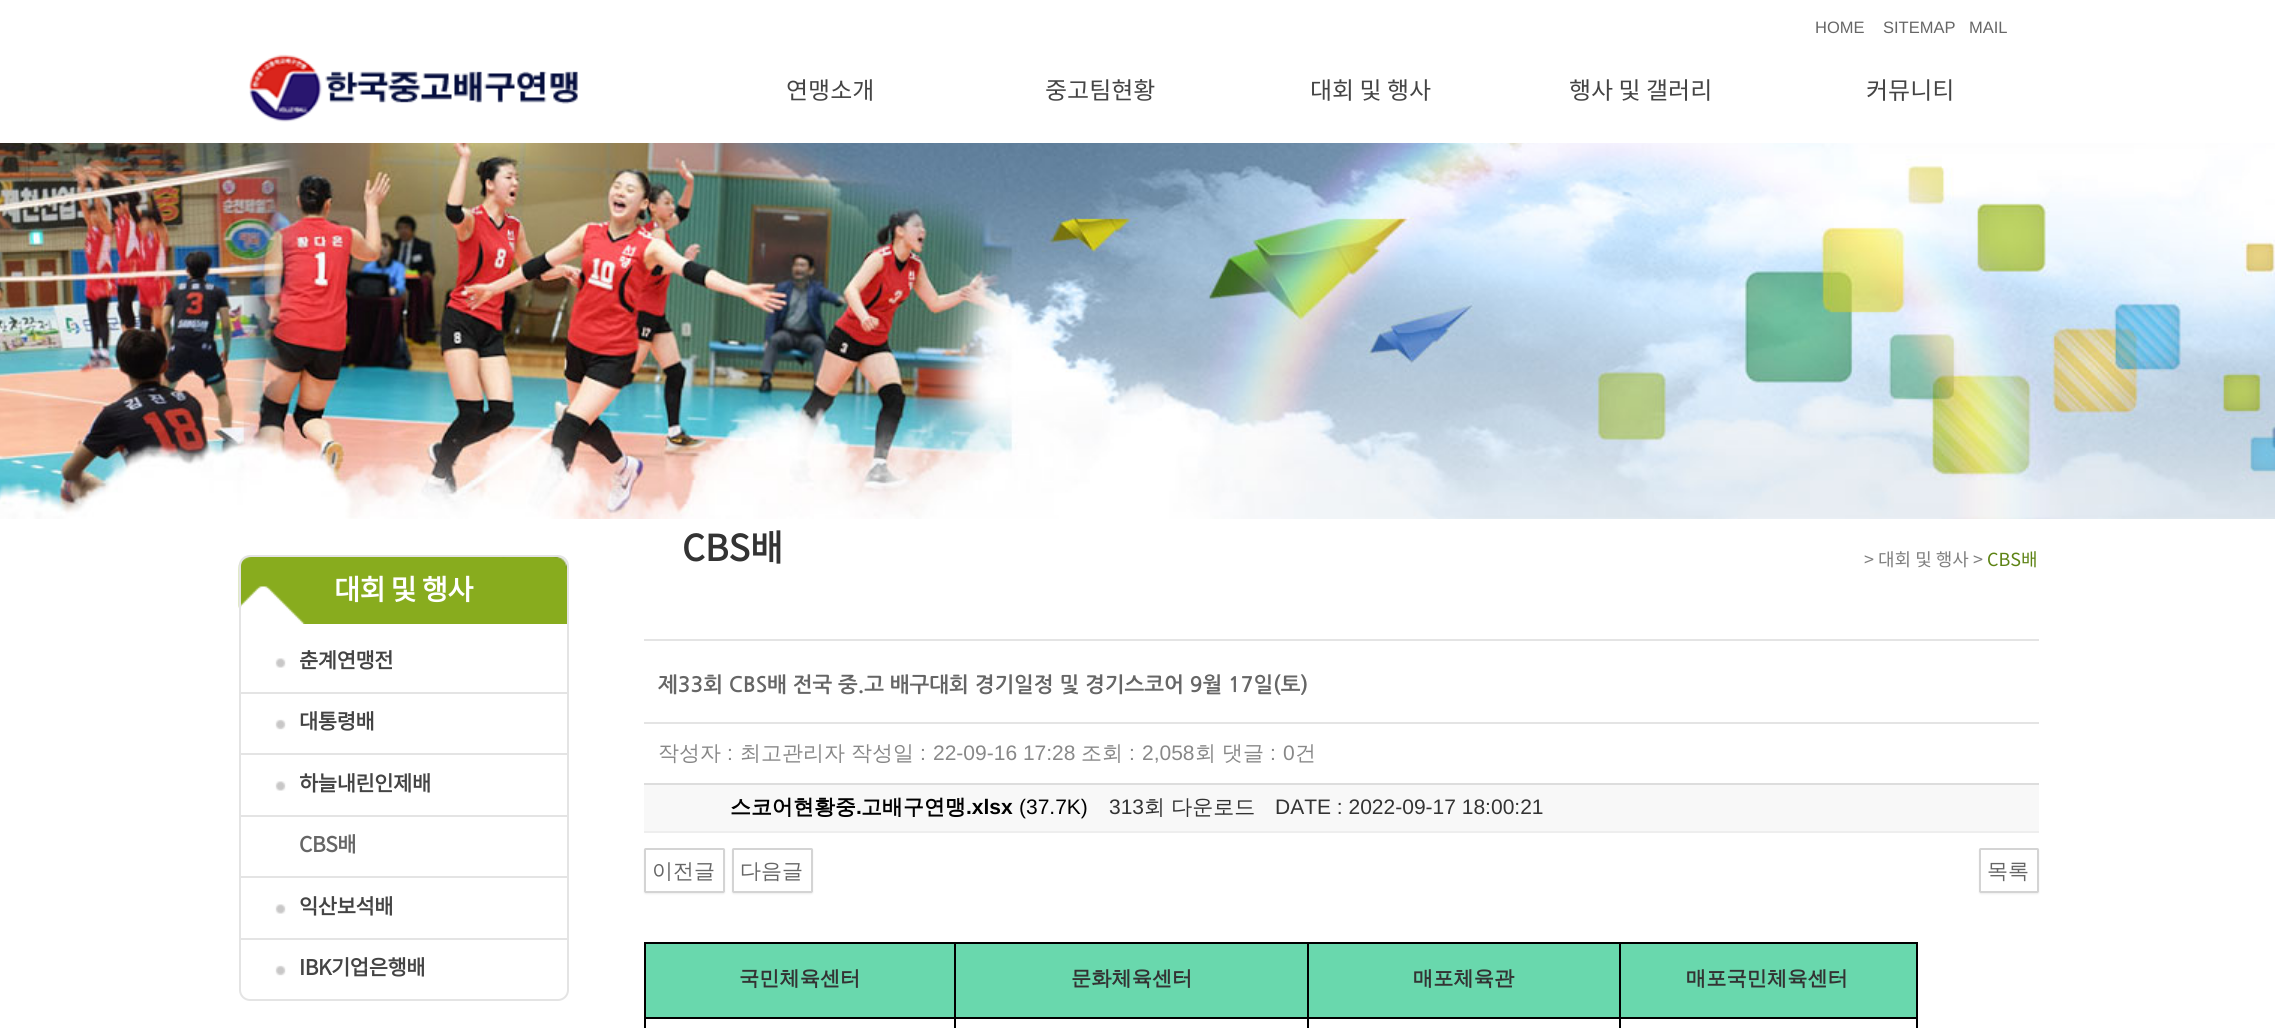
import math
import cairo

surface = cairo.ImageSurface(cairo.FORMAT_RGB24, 2275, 1028)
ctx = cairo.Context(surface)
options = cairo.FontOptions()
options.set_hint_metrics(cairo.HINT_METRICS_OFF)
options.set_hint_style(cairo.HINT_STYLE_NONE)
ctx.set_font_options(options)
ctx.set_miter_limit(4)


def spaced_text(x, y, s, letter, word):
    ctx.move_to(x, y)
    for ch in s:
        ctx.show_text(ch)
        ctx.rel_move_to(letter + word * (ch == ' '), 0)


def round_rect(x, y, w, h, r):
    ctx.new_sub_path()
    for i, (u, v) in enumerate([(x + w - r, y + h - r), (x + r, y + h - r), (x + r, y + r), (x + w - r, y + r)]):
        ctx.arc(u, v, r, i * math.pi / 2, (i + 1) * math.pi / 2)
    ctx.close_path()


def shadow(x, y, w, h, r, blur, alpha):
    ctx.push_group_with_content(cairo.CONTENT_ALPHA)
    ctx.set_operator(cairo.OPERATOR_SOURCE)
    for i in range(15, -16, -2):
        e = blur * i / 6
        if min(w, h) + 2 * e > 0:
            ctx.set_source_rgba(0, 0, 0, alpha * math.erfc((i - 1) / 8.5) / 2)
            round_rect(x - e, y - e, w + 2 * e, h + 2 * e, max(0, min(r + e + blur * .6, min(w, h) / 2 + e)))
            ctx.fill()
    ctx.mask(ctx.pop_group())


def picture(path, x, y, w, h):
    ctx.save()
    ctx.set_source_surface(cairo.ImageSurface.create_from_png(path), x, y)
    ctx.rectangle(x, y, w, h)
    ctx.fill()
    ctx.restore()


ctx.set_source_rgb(1, 1, 1)
ctx.paint()
ctx.select_font_face("Liberation Sans")
ctx.set_font_size(16.5)
ctx.set_source_rgb(0.4, 0.4, 0.4)
ctx.move_to(1815, 33)
ctx.show_text("HOME")
ctx.move_to(1883, 33)
ctx.show_text("SITEMAP")
ctx.move_to(1969, 33)
ctx.show_text("MAIL")
picture("img1.png", 249, 54, 329, 68)
ctx.select_font_face("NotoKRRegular")
ctx.set_font_size(24)
ctx.set_source_rgb(0.267, 0.267, 0.267)
ctx.move_to(786, 99)
ctx.show_text("연맹소개")
ctx.move_to(1045, 99)
ctx.show_text("중고팀현황")
ctx.move_to(1310, 99)
ctx.show_text("대회 및 행사")
ctx.move_to(1569, 99)
ctx.show_text("행사 및 갤러리")
ctx.move_to(1866, 99)
ctx.show_text("커뮤니티")
picture("img2.png", 0, 143, 2275, 376)
picture("img3.png", 238, 556, 329, 68)
round_rect(240, 556, 328, 444, 10)
ctx.set_source_rgb(0.894, 0.894, 0.894)
ctx.stroke()
ctx.select_font_face("NotoKRRegular", cairo.FONT_SLANT_NORMAL, cairo.FONT_WEIGHT_BOLD)
ctx.set_font_size(28.5)
ctx.set_source_rgb(1, 1, 1)
spaced_text(334, 600, "대회 및 행사", -0.75, 0)
picture("img4.png", 275, 658, 11, 10)
ctx.set_source_rgb(0.894, 0.894, 0.894)
ctx.rectangle(240, 692, 327, 2)
ctx.fill()
ctx.set_font_size(21)
ctx.set_source_rgb(0.267, 0.267, 0.267)
spaced_text(299, 668, "춘계연맹전", -0.5, 0)
picture("img5.png", 275, 719, 11, 11)
ctx.set_source_rgb(0.894, 0.894, 0.894)
ctx.rectangle(240, 753, 327, 2)
ctx.fill()
ctx.set_source_rgb(0.267, 0.267, 0.267)
spaced_text(299, 729, "대통령배", -0.5, 0)
picture("img4.png", 275, 781, 11, 10)
ctx.set_source_rgb(0.894, 0.894, 0.894)
ctx.rectangle(240, 815, 327, 2)
ctx.fill()
ctx.set_source_rgb(0.267, 0.267, 0.267)
spaced_text(299, 791, "하늘내린인제배", -0.5, 0)
ctx.set_source_rgb(0.894, 0.894, 0.894)
ctx.rectangle(240, 876, 327, 2)
ctx.fill()
ctx.set_source_rgb(0.4, 0.4, 0.4)
spaced_text(299, 852, "CBS배", -0.5, 0)
picture("img4.png", 275, 904, 11, 10)
ctx.set_source_rgb(0.894, 0.894, 0.894)
ctx.rectangle(240, 938, 327, 2)
ctx.fill()
ctx.set_source_rgb(0.267, 0.267, 0.267)
spaced_text(299, 914, "익산보석배", -0.5, 0)
picture("img5.png", 275, 965, 11, 11)
spaced_text(299, 975, "IBK기업은행배", -0.5, 0)
ctx.set_font_size(36)
ctx.set_source_rgb(0.2, 0.2, 0.2)
ctx.move_to(682, 561)
ctx.show_text("CBS배")
ctx.select_font_face("NotoKRRegular")
ctx.set_font_size(18)
ctx.set_source_rgb(0.498, 0.498, 0.498)
ctx.move_to(1864, 566)
ctx.show_text("> 대회 및 행사 >")
ctx.set_source_rgb(0.365, 0.514, 0.082)
ctx.move_to(1987, 566)
ctx.show_text("CBS배")
ctx.set_source_rgb(0.894, 0.894, 0.894)
ctx.rectangle(644, 639, 1395, 2)
ctx.fill()
ctx.select_font_face("NanumGothic", cairo.FONT_SLANT_NORMAL, cairo.FONT_WEIGHT_BOLD)
ctx.set_font_size(21)
ctx.set_source_rgb(0.4, 0.4, 0.4)
ctx.move_to(658, 692)
ctx.show_text("제33회 CBS배 전국 중.고 배구대회 경기일정 및 경기스코어 9월 17일(토)")
ctx.set_source_rgb(0.894, 0.894, 0.894)
ctx.rectangle(644, 722, 1395, 2)
ctx.fill()
ctx.set_source_rgb(0.867, 0.867, 0.867)
ctx.rectangle(644, 783, 1395, 2)
ctx.fill()
ctx.select_font_face("WenQuanYi Zen Hei Medium")
ctx.set_source_rgb(0.533, 0.533, 0.533)
ctx.move_to(658, 760)
ctx.show_text("작성자")
ctx.select_font_face("Liberation Sans")
ctx.move_to(727, 760)
ctx.show_text(":")
ctx.select_font_face("WenQuanYi Zen Hei Medium")
ctx.move_to(740, 760)
ctx.show_text("최고관리자")
ctx.move_to(851, 760)
ctx.show_text("작성일")
ctx.select_font_face("Liberation Sans")
ctx.move_to(920, 760)
ctx.show_text(":")
ctx.move_to(933, 760)
ctx.show_text("22-09-16 17:28")
ctx.select_font_face("WenQuanYi Zen Hei Medium")
ctx.move_to(1081, 760)
ctx.show_text("조회")
ctx.select_font_face("Liberation Sans")
ctx.move_to(1129, 760)
ctx.show_text(":")
ctx.move_to(1142, 760)
ctx.show_text("2,058")
ctx.select_font_face("WenQuanYi Zen Hei Medium")
ctx.move_to(1195, 760)
ctx.show_text("회")
ctx.move_to(1222, 760)
ctx.show_text("댓글")
ctx.select_font_face("Liberation Sans")
ctx.move_to(1270, 760)
ctx.show_text(":")
ctx.move_to(1283, 760)
ctx.show_text("0")
ctx.select_font_face("WenQuanYi Zen Hei Medium")
ctx.move_to(1295, 760)
ctx.show_text("건")
ctx.set_source_rgb(0.969, 0.969, 0.969)
ctx.rectangle(644, 785, 1395, 46)
ctx.fill()
ctx.set_source_rgb(0.933, 0.933, 0.933)
ctx.rectangle(644, 831, 1395, 2)
ctx.fill()
ctx.select_font_face("WenQuanYi Zen Hei", cairo.FONT_SLANT_NORMAL, cairo.FONT_WEIGHT_BOLD)
ctx.set_source_rgb(0, 0, 0)
ctx.move_to(730, 814)
ctx.show_text("스코어현황중")
ctx.select_font_face("Liberation Sans", cairo.FONT_SLANT_NORMAL, cairo.FONT_WEIGHT_BOLD)
ctx.move_to(856, 814)
ctx.show_text(".")
ctx.select_font_face("WenQuanYi Zen Hei", cairo.FONT_SLANT_NORMAL, cairo.FONT_WEIGHT_BOLD)
ctx.move_to(861, 814)
ctx.show_text("고배구연맹")
ctx.select_font_face("Liberation Sans", cairo.FONT_SLANT_NORMAL, cairo.FONT_WEIGHT_BOLD)
ctx.move_to(966, 814)
ctx.show_text(".xlsx")
ctx.select_font_face("Liberation Sans")
ctx.move_to(1019, 814)
ctx.show_text("(37.7K)")
ctx.set_source_rgb(0.2, 0.2, 0.2)
ctx.move_to(1109, 814)
ctx.show_text("313")
ctx.select_font_face("WenQuanYi Zen Hei Medium")
ctx.move_to(1144, 814)
ctx.show_text("회 다운로드")
ctx.select_font_face("Liberation Sans")
ctx.move_to(1275, 814)
ctx.show_text("DATE : 2022-09-17 18:00:21")
ctx.save()
ctx.set_fill_rule(cairo.FILL_RULE_EVEN_ODD)
ctx.new_path()
ctx.move_to(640, 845)
ctx.line_to(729, 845)
ctx.line_to(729, 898)
ctx.line_to(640, 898)
ctx.close_path()
ctx.move_to(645.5, 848)
ctx.line_to(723.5, 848)
ctx.curve_to(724.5, 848, 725, 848.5, 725, 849.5)
ctx.line_to(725, 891.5)
ctx.curve_to(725, 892.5, 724.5, 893, 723.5, 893)
ctx.line_to(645.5, 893)
ctx.curve_to(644.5, 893, 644, 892.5, 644, 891.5)
ctx.line_to(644, 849.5)
ctx.curve_to(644, 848.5, 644.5, 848, 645.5, 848)
ctx.close_path()
ctx.clip()
ctx.set_source_rgb(0, 0, 0)
shadow(644, 849, 81, 45, 1.5, 1, 0.07)
ctx.restore()
round_rect(645, 849, 79, 43, 0.5)
ctx.set_source_rgb(0.831, 0.831, 0.831)
ctx.stroke()
ctx.select_font_face("WenQuanYi Zen Hei Medium")
ctx.set_source_rgb(0.4, 0.4, 0.4)
ctx.move_to(652, 878)
ctx.show_text("이전글")
ctx.save()
ctx.set_fill_rule(cairo.FILL_RULE_EVEN_ODD)
ctx.new_path()
ctx.move_to(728, 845)
ctx.line_to(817, 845)
ctx.line_to(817, 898)
ctx.line_to(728, 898)
ctx.close_path()
ctx.move_to(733.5, 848)
ctx.line_to(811.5, 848)
ctx.curve_to(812.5, 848, 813, 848.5, 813, 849.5)
ctx.line_to(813, 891.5)
ctx.curve_to(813, 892.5, 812.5, 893, 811.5, 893)
ctx.line_to(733.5, 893)
ctx.curve_to(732.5, 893, 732, 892.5, 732, 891.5)
ctx.line_to(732, 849.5)
ctx.curve_to(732, 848.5, 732.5, 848, 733.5, 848)
ctx.close_path()
ctx.clip()
ctx.set_source_rgb(0, 0, 0)
shadow(732, 849, 81, 45, 1.5, 1, 0.07)
ctx.restore()
round_rect(733, 849, 79, 43, 0.5)
ctx.set_source_rgb(0.831, 0.831, 0.831)
ctx.stroke()
ctx.set_source_rgb(0.4, 0.4, 0.4)
ctx.move_to(740, 878)
ctx.show_text("다음글")
ctx.save()
ctx.set_fill_rule(cairo.FILL_RULE_EVEN_ODD)
ctx.new_path()
ctx.move_to(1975, 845)
ctx.line_to(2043, 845)
ctx.line_to(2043, 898)
ctx.line_to(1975, 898)
ctx.close_path()
ctx.move_to(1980.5, 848)
ctx.line_to(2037.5, 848)
ctx.curve_to(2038.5, 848, 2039, 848.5, 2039, 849.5)
ctx.line_to(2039, 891.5)
ctx.curve_to(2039, 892.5, 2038.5, 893, 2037.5, 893)
ctx.line_to(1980.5, 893)
ctx.curve_to(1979.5, 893, 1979, 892.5, 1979, 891.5)
ctx.line_to(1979, 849.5)
ctx.curve_to(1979, 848.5, 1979.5, 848, 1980.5, 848)
ctx.close_path()
ctx.clip()
ctx.set_source_rgb(0, 0, 0)
shadow(1979, 849, 60, 45, 1.5, 1, 0.07)
ctx.restore()
round_rect(1980, 849, 58, 43, 0.5)
ctx.set_source_rgb(0.831, 0.831, 0.831)
ctx.stroke()
ctx.set_source_rgb(0.4, 0.4, 0.4)
ctx.move_to(1987, 878)
ctx.show_text("목록")
ctx.set_source_rgb(0.412, 0.847, 0.678)
ctx.rectangle(646, 944, 308, 73)
ctx.fill()
ctx.set_source_rgb(0, 0, 0)
ctx.rectangle(1619, 942, 298, 2)
ctx.fill()
ctx.rectangle(1619, 1017, 298, 2)
ctx.fill()
ctx.rectangle(1619, 1017, 2, 11)
ctx.fill()
ctx.rectangle(1307, 1017, 313, 2)
ctx.fill()
ctx.rectangle(1619, 942, 2, 77)
ctx.fill()
ctx.rectangle(1307, 942, 313, 2)
ctx.fill()
ctx.rectangle(1307, 1017, 2, 11)
ctx.fill()
ctx.rectangle(954, 1017, 354, 2)
ctx.fill()
ctx.rectangle(1307, 942, 2, 77)
ctx.fill()
ctx.rectangle(954, 942, 354, 2)
ctx.fill()
ctx.rectangle(954, 1017, 2, 11)
ctx.fill()
ctx.rectangle(644, 1017, 312, 2)
ctx.fill()
ctx.rectangle(954, 942, 2, 77)
ctx.fill()
ctx.rectangle(644, 942, 312, 2)
ctx.fill()
ctx.rectangle(644, 1017, 2, 11)
ctx.fill()
ctx.rectangle(644, 942, 2, 77)
ctx.fill()
ctx.select_font_face("WenQuanYi Zen Hei", cairo.FONT_SLANT_NORMAL, cairo.FONT_WEIGHT_BOLD)
ctx.set_font_size(20.25)
ctx.set_source_rgb(0.2, 0.2, 0.2)
ctx.move_to(739, 985)
ctx.show_text("국민체육센터")
ctx.set_source_rgb(0.412, 0.847, 0.678)
ctx.rectangle(956, 944, 351, 73)
ctx.fill()
ctx.set_source_rgb(0.2, 0.2, 0.2)
ctx.move_to(1071, 985)
ctx.show_text("문화체육센터")
ctx.set_source_rgb(0.412, 0.847, 0.678)
ctx.rectangle(1309, 944, 310, 73)
ctx.fill()
ctx.set_source_rgb(0.2, 0.2, 0.2)
ctx.move_to(1413, 985)
ctx.show_text("매포체육관")
ctx.set_source_rgb(0.412, 0.847, 0.678)
ctx.rectangle(1621, 944, 295, 73)
ctx.fill()
ctx.set_source_rgb(0, 0, 0)
ctx.rectangle(1916, 1017, 2, 11)
ctx.fill()
ctx.rectangle(1916, 942, 2, 77)
ctx.fill()
ctx.set_source_rgb(0.2, 0.2, 0.2)
ctx.move_to(1686, 985)
ctx.show_text("매포국민체육센터")
surface.write_to_png("page.png")
